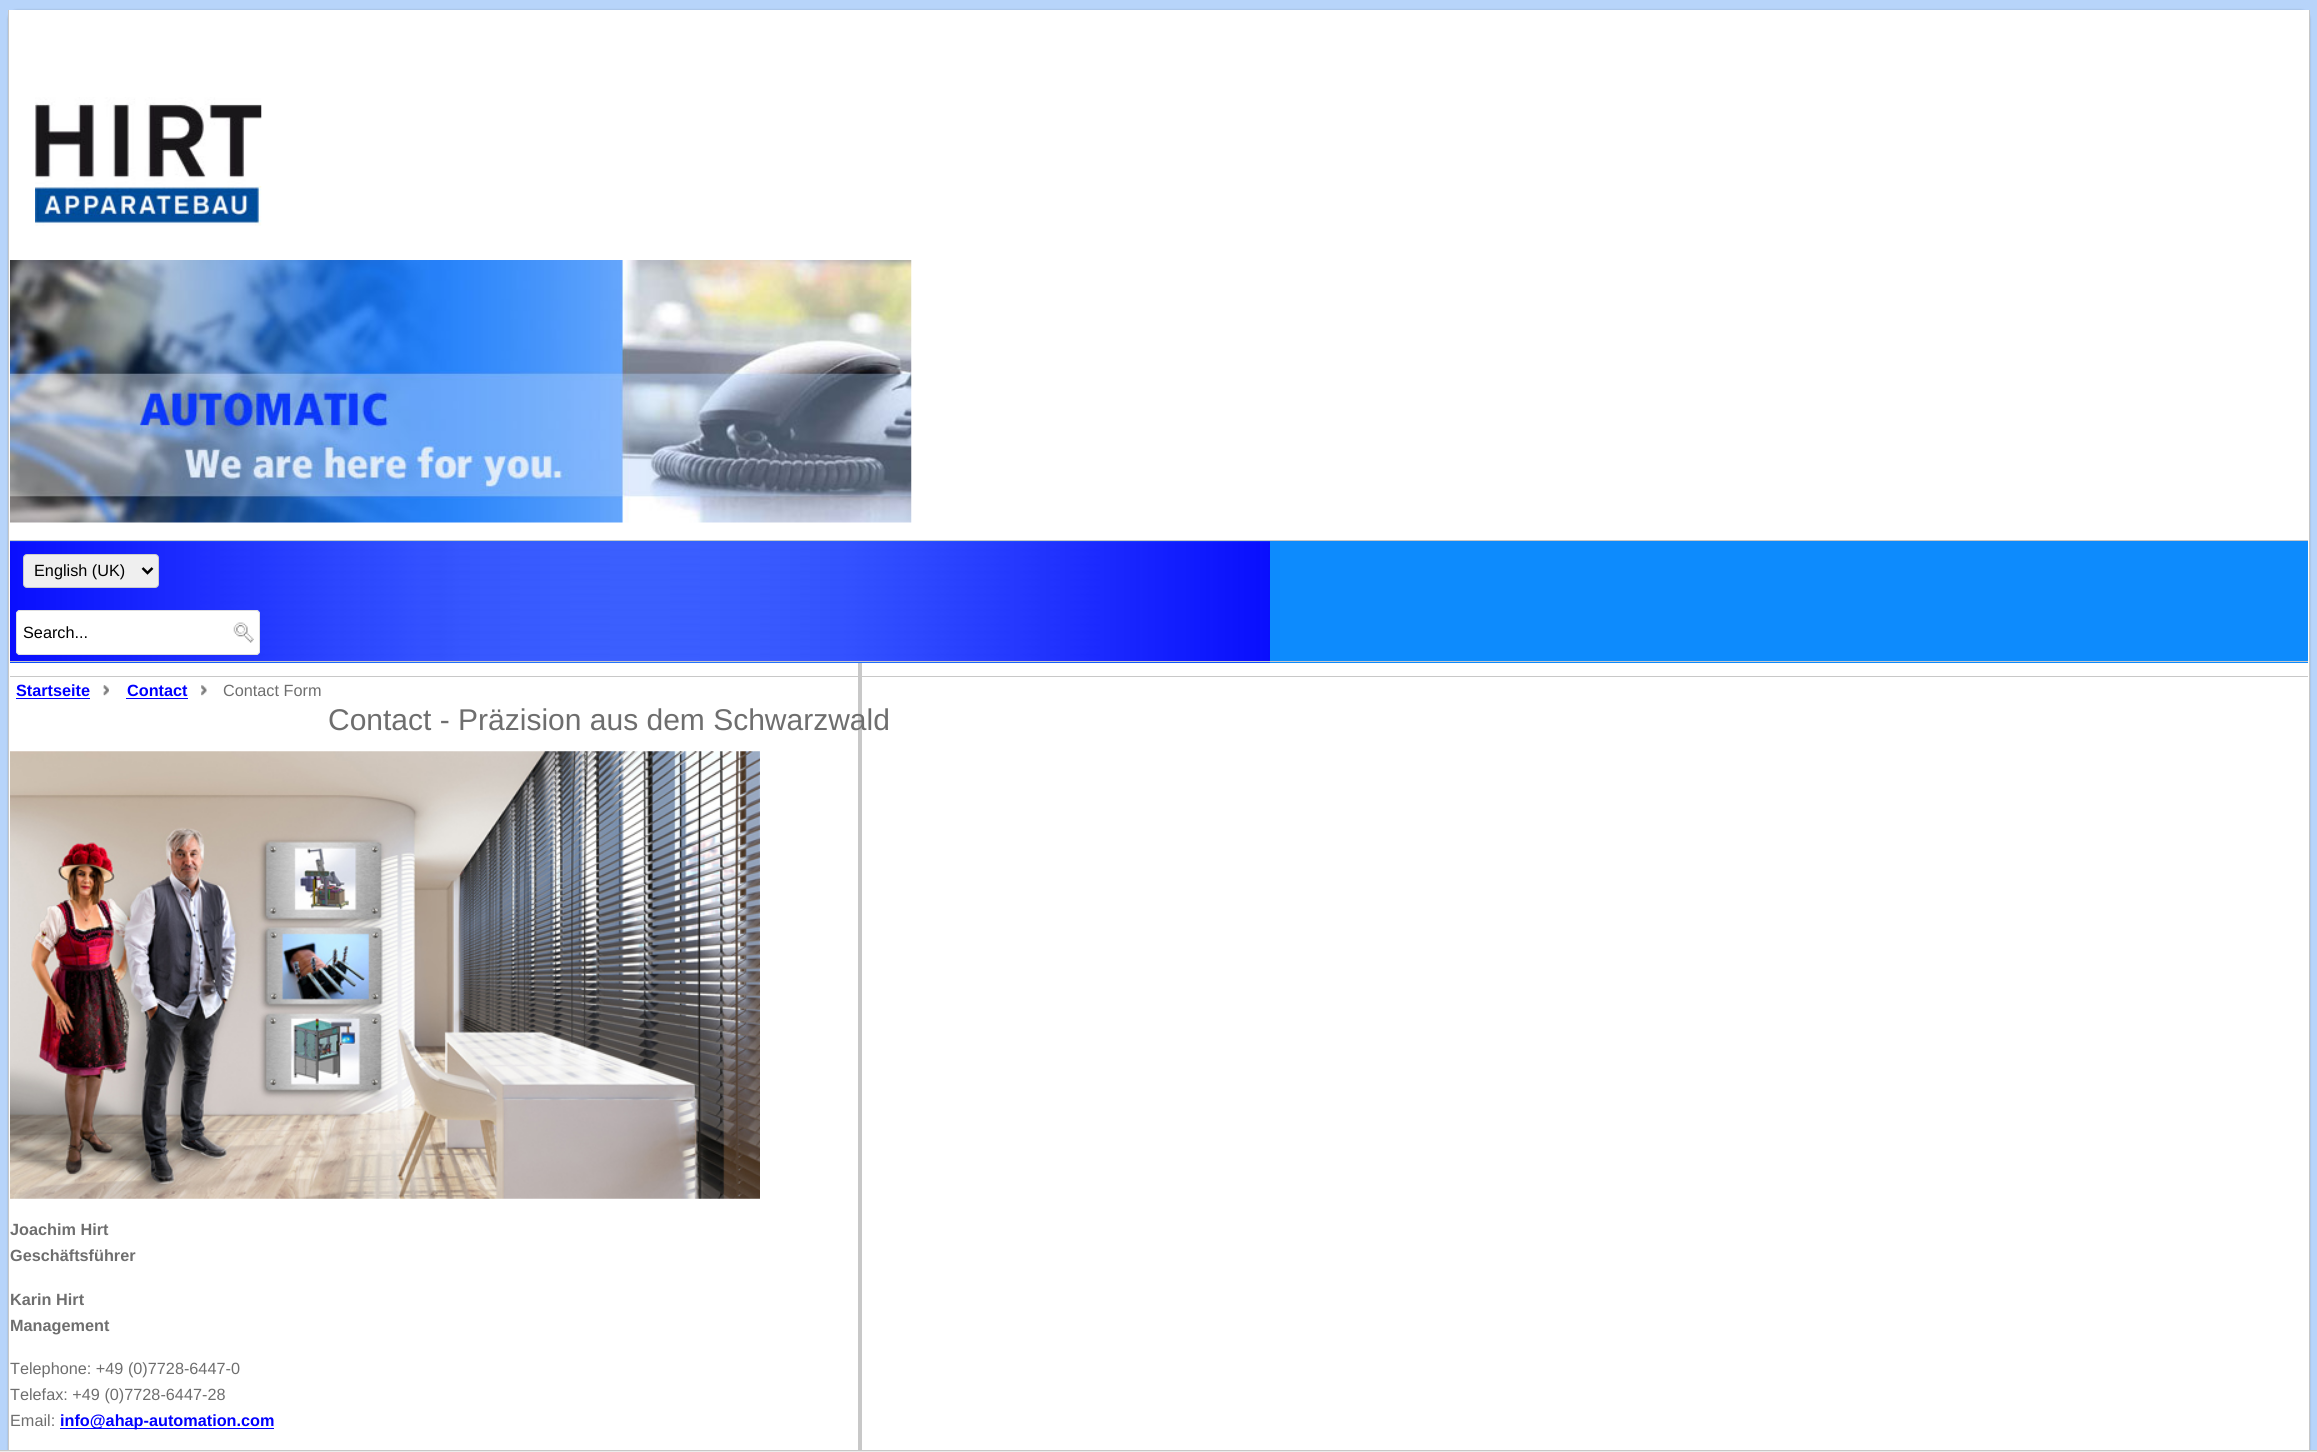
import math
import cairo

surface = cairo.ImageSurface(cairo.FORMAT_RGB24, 2317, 1452)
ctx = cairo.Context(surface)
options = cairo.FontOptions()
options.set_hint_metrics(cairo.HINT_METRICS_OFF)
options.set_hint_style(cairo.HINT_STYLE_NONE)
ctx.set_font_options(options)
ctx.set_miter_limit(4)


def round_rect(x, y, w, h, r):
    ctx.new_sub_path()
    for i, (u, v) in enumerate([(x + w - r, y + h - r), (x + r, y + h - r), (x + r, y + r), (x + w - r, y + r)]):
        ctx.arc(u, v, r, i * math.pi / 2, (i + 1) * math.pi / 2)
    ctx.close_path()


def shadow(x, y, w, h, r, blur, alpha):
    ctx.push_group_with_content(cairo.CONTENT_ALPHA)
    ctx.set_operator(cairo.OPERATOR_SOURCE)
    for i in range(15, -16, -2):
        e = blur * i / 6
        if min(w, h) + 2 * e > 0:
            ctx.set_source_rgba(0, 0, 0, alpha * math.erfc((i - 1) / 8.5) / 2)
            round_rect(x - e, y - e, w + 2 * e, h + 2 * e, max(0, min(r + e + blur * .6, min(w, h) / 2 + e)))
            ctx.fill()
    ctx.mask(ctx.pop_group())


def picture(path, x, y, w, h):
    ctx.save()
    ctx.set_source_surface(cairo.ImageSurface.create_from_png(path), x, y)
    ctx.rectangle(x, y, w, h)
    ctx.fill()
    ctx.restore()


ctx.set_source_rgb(0.718, 0.831, 0.98)
ctx.paint()
ctx.set_source_rgb(0, 0, 0)
shadow(8, 10, 2302, 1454, 9, 1, 0.2)
ctx.set_source_rgb(0.784, 0.784, 0.784)
ctx.set_fill_rule(cairo.FILL_RULE_EVEN_ODD)
ctx.new_path()
ctx.move_to(8, 10)
ctx.line_to(2310, 10)
ctx.line_to(2310, 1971)
ctx.curve_to(2310, 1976, 2306, 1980, 2301, 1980)
ctx.line_to(16, 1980)
ctx.curve_to(11, 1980, 8, 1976, 8, 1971)
ctx.close_path()
ctx.move_to(9, 10)
ctx.line_to(2309, 10)
ctx.line_to(2309, 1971)
ctx.curve_to(2309, 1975, 2305, 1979, 2301, 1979)
ctx.line_to(16, 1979)
ctx.curve_to(12, 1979, 9, 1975, 9, 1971)
ctx.close_path()
ctx.fill()
ctx.set_source_rgb(1, 1, 1)
ctx.new_path()
ctx.move_to(9, 10)
ctx.line_to(2309, 10)
ctx.line_to(2309, 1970)
ctx.curve_to(2309, 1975, 2305, 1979, 2300, 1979)
ctx.line_to(18, 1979)
ctx.curve_to(13, 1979, 9, 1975, 9, 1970)
ctx.close_path()
ctx.move_to(10, 10)
ctx.line_to(2308, 10)
ctx.line_to(2308, 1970)
ctx.curve_to(2308, 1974, 2304, 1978, 2300, 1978)
ctx.line_to(18, 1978)
ctx.curve_to(13, 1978, 10, 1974, 10, 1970)
ctx.close_path()
ctx.fill()
ctx.rectangle(10, 10, 2298, 530)
ctx.fill()
ctx.set_source_rgb(0.784, 0.784, 0.784)
ctx.rectangle(10, 540, 2298, 1)
ctx.fill()
picture("img1.png", 35, 97, 227, 129)
picture("img2.png", 10, 260, 902, 263)
ctx.set_source_rgb(1, 1, 1)
ctx.rectangle(10, 663, 2298, 787)
ctx.fill()
ctx.set_source_rgb(0.051, 0.545, 0.992)
ctx.rectangle(10, 541, 2298, 122)
ctx.fill()
picture("img3.png", 10, 541, 1260, 122)
ctx.set_source_rgb(0.784, 0.784, 0.784)
ctx.rectangle(10, 661, 2298, 1)
ctx.fill()
ctx.set_source_rgb(0.937, 0.937, 0.937)
round_rect(23.5, 554.5, 135, 33, 3.5)
ctx.fill_preserve()
ctx.set_source_rgb(0.8, 0.8, 0.8)
ctx.set_line_width(1)
ctx.stroke()
ctx.new_path()
ctx.move_to(142.5, 568)
ctx.line_to(147.5, 573)
ctx.line_to(152.5, 568)
ctx.set_source_rgb(0, 0, 0)
ctx.set_line_width(2.5)
ctx.stroke()
ctx.select_font_face("Liberation Sans")
ctx.set_font_size(16.25)
ctx.move_to(34, 576)
ctx.show_text("English (UK)")
ctx.set_source_rgb(1, 1, 1)
round_rect(16, 610, 244, 45, 4)
ctx.fill()
picture("img4.png", 233, 622, 21, 21)
round_rect(16.5, 610.5, 243, 44, 3.5)
ctx.set_source_rgb(0.875, 0.875, 0.875)
ctx.set_line_width(1)
ctx.stroke()
ctx.set_source_rgb(0, 0, 0)
ctx.move_to(23, 638)
ctx.show_text("Search...")
ctx.set_source_rgb(0.784, 0.784, 0.784)
ctx.rectangle(858, 663, 4, 789)
ctx.fill()
ctx.rectangle(10, 676, 2298, 1)
ctx.fill()
ctx.select_font_face("Liberation Sans", cairo.FONT_SLANT_NORMAL, cairo.FONT_WEIGHT_BOLD)
ctx.set_source_rgb(0, 0, 0.996)
ctx.move_to(16, 696)
ctx.show_text("Startseite")
ctx.rectangle(16, 698, 74, 1)
ctx.fill()
picture("img5.png", 103, 685, 6, 11)
picture("img6.png", 103, 686, 6, 10)
ctx.move_to(127, 696)
ctx.show_text("Contact")
ctx.rectangle(126, 698, 62, 1)
ctx.fill()
picture("img7.png", 201, 685, 6, 11)
picture("img8.png", 201, 686, 6, 10)
ctx.select_font_face("Liberation Sans")
ctx.set_source_rgb(0.431, 0.431, 0.431)
ctx.move_to(223, 696)
ctx.show_text("Contact Form")
ctx.set_font_size(30)
ctx.move_to(328, 730)
ctx.show_text("Contact - Präzision aus dem Schwarzwald")
picture("img9.png", 10, 751, 750, 448)
ctx.select_font_face("Liberation Sans", cairo.FONT_SLANT_NORMAL, cairo.FONT_WEIGHT_BOLD)
ctx.set_font_size(16.25)
ctx.move_to(10, 1235)
ctx.show_text("Joachim Hirt")
ctx.move_to(10, 1261)
ctx.show_text("Geschäftsführer")
ctx.move_to(10, 1305)
ctx.show_text("Karin Hirt")
ctx.move_to(10, 1331)
ctx.show_text("Management")
ctx.select_font_face("Liberation Sans")
ctx.move_to(10, 1374)
ctx.show_text("Telephone: +49 (0)7728-6447-0")
ctx.move_to(10, 1400)
ctx.show_text("Telefax: +49 (0)7728-6447-28")
ctx.move_to(10, 1426)
ctx.show_text("Email:")
ctx.set_source_rgb(0, 0, 0.996)
ctx.rectangle(60, 1428, 214, 1)
ctx.fill()
ctx.select_font_face("Liberation Sans", cairo.FONT_SLANT_NORMAL, cairo.FONT_WEIGHT_BOLD)
ctx.move_to(60, 1426)
ctx.show_text("info@ahap-automation.com")
ctx.set_source_rgb(0.918, 0.918, 0.918)
ctx.rectangle(0, 1451, 2317, 1)
ctx.fill()
ctx.set_source_rgb(0.784, 0.784, 0.784)
ctx.rectangle(0, 1450, 2317, 1)
ctx.fill()
surface.write_to_png("page.png")
